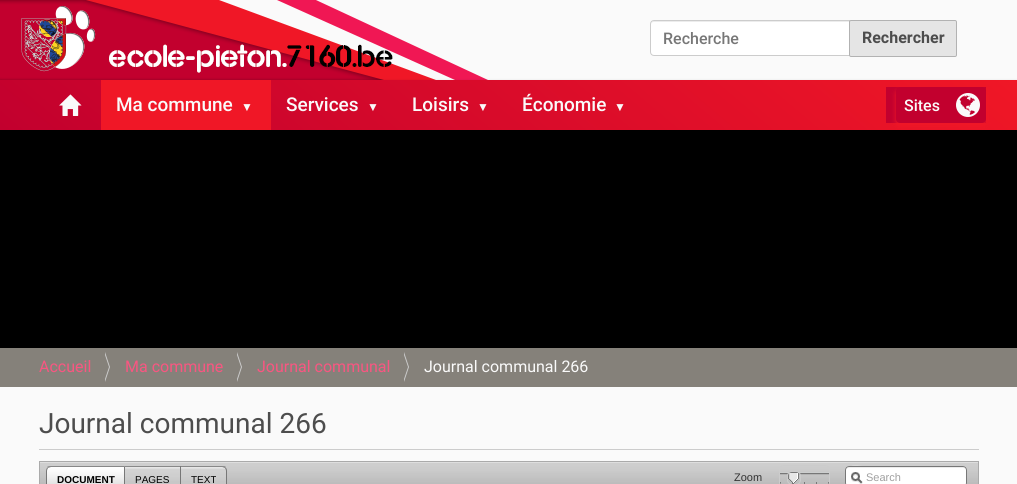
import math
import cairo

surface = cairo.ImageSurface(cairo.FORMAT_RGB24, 1017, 484)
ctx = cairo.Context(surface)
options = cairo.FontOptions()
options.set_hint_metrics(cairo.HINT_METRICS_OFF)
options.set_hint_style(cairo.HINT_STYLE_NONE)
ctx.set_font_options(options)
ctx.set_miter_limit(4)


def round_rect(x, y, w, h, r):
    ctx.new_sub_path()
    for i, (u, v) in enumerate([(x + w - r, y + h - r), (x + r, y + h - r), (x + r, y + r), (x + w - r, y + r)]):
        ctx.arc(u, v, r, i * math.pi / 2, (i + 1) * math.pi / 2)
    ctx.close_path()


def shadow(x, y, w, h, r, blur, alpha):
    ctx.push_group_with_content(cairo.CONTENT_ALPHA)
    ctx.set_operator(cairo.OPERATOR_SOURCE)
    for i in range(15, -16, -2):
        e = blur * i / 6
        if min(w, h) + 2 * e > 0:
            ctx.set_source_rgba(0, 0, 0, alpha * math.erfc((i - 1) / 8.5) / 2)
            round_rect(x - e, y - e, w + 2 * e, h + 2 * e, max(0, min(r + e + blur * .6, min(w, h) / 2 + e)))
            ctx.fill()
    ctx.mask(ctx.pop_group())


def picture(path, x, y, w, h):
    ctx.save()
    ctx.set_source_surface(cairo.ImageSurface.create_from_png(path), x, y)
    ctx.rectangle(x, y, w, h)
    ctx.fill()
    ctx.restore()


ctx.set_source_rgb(0.98, 0.98, 0.98)
ctx.paint()
picture("img1.png", 0, 0, 488, 80)
ctx.set_source_rgb(1, 1, 1)
ctx.new_path()
ctx.move_to(654, 20)
ctx.line_to(850, 20)
ctx.line_to(850, 56)
ctx.line_to(654, 56)
ctx.curve_to(652, 56, 650, 54, 650, 52)
ctx.line_to(650, 24)
ctx.curve_to(650, 22, 652, 20, 654, 20)
ctx.close_path()
ctx.fill()
ctx.set_source_rgb(0.925, 0.925, 0.925)
ctx.new_path()
ctx.move_to(654, 22)
ctx.line_to(849, 22)
ctx.line_to(849, 21)
ctx.line_to(654, 21)
ctx.curve_to(652, 21, 651, 23, 651, 25)
ctx.curve_to(651, 23, 652, 22, 654, 22)
ctx.close_path()
ctx.fill()
ctx.new_path()
ctx.move_to(654, 20.5)
ctx.line_to(849.5, 20.5)
ctx.line_to(849.5, 55.5)
ctx.line_to(654, 55.5)
ctx.curve_to(652, 55.5, 650.5, 54, 650.5, 52)
ctx.line_to(650.5, 24)
ctx.curve_to(650.5, 22, 652, 20.5, 654, 20.5)
ctx.close_path()
ctx.set_source_rgb(0.8, 0.8, 0.8)
ctx.set_line_width(1)
ctx.stroke()
ctx.select_font_face("Roboto Medium")
ctx.set_font_size(16)
ctx.set_source_rgb(0.467, 0.467, 0.467)
ctx.move_to(663, 44)
ctx.show_text("Recherche")
ctx.set_source_rgb(0.898, 0.898, 0.898)
round_rect(849.5, 20.5, 107, 36, 1.5)
ctx.fill_preserve()
ctx.set_source_rgb(0.698, 0.698, 0.698)
ctx.stroke()
ctx.select_font_face("Roboto", cairo.FONT_SLANT_NORMAL, cairo.FONT_WEIGHT_BOLD)
ctx.set_source_rgb(0.302, 0.302, 0.302)
ctx.move_to(862, 43)
ctx.show_text("Rechercher")
ctx.set_source_rgb(0, 0, 0)
shadow(0, 81, 1017, 50, 0, 1.5, 0.17)
gradient = cairo.LinearGradient(286, 370, 731, -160)
gradient.add_color_stop_rgba(0, 0.761, 0, 0.18, 1)
gradient.add_color_stop_rgba(1, 0.941, 0.09, 0.149, 1)
ctx.set_source(gradient)
ctx.rectangle(0, 80, 1017, 50)
ctx.fill()
picture("img2.png", 59, 94, 23, 22)
ctx.set_source_rgb(0.941, 0.09, 0.149)
ctx.rectangle(101, 80, 170, 50)
ctx.fill()
ctx.select_font_face("Roboto Medium")
ctx.set_font_size(19)
ctx.set_source_rgb(0.98, 0.98, 0.98)
ctx.move_to(116, 111)
ctx.show_text("Ma commune")
ctx.select_font_face("Liberation Sans", cairo.FONT_SLANT_NORMAL, cairo.FONT_WEIGHT_BOLD)
ctx.set_font_size(12)
ctx.move_to(241, 111)
ctx.show_text("▼")
ctx.select_font_face("Roboto Medium")
ctx.set_font_size(19)
ctx.move_to(286, 111)
ctx.show_text("Services")
ctx.select_font_face("Liberation Sans", cairo.FONT_SLANT_NORMAL, cairo.FONT_WEIGHT_BOLD)
ctx.set_font_size(12)
ctx.move_to(367, 111)
ctx.show_text("▼")
ctx.select_font_face("Roboto Medium")
ctx.set_font_size(19)
ctx.move_to(412, 111)
ctx.show_text("Loisirs")
ctx.select_font_face("Liberation Sans", cairo.FONT_SLANT_NORMAL, cairo.FONT_WEIGHT_BOLD)
ctx.set_font_size(12)
ctx.move_to(477, 111)
ctx.show_text("▼")
ctx.select_font_face("Roboto Medium")
ctx.set_font_size(19)
ctx.move_to(522, 111)
ctx.show_text("Économie")
ctx.select_font_face("Liberation Sans", cairo.FONT_SLANT_NORMAL, cairo.FONT_WEIGHT_BOLD)
ctx.set_font_size(12)
ctx.move_to(614, 111)
ctx.show_text("▼")
ctx.set_source_rgb(0.761, 0, 0.18)
ctx.rectangle(886, 87, 100, 36)
ctx.fill()
ctx.set_source_rgb(0.941, 0.09, 0.149)
shadow(896, 90, 90, 36, 4, 2.5, 1)
ctx.set_source_rgb(0.761, 0, 0.18)
round_rect(896, 87, 90, 36, 4)
ctx.fill()
ctx.select_font_face("Roboto Medium")
ctx.set_font_size(16)
ctx.set_source_rgb(0.98, 0.98, 0.98)
ctx.move_to(904, 111)
ctx.show_text("Sites")
picture("img3.png", 956, 93, 24, 24)
ctx.set_source_rgb(0, 0, 0)
ctx.rectangle(0, 130, 1017, 218)
ctx.fill()
ctx.set_source_rgb(0.522, 0.506, 0.478)
ctx.rectangle(0, 348, 1017, 39)
ctx.fill()
ctx.select_font_face("Roboto")
ctx.set_source_rgb(0.969, 0.337, 0.506)
ctx.move_to(39, 372)
ctx.show_text("Accueil")
ctx.set_source_rgb(0.8, 0.8, 0.8)
ctx.new_path()
ctx.move_to(105, 382)
ctx.line_to(105, 352)
ctx.line_to(110, 367)
ctx.close_path()
ctx.fill()
ctx.set_source_rgb(0.522, 0.506, 0.478)
ctx.new_path()
ctx.move_to(104, 382)
ctx.line_to(104, 352)
ctx.line_to(109, 367)
ctx.close_path()
ctx.fill()
ctx.set_source_rgb(0.969, 0.337, 0.506)
ctx.move_to(125, 372)
ctx.show_text("Ma commune")
ctx.set_source_rgb(0.8, 0.8, 0.8)
ctx.new_path()
ctx.move_to(237, 382)
ctx.line_to(237, 352)
ctx.line_to(242, 367)
ctx.close_path()
ctx.fill()
ctx.set_source_rgb(0.522, 0.506, 0.478)
ctx.new_path()
ctx.move_to(236, 382)
ctx.line_to(236, 352)
ctx.line_to(241, 367)
ctx.close_path()
ctx.fill()
ctx.set_source_rgb(0.969, 0.337, 0.506)
ctx.move_to(257, 372)
ctx.show_text("Journal communal")
ctx.set_source_rgb(0.8, 0.8, 0.8)
ctx.new_path()
ctx.move_to(404, 382)
ctx.line_to(404, 352)
ctx.line_to(409, 367)
ctx.close_path()
ctx.fill()
ctx.set_source_rgb(0.522, 0.506, 0.478)
ctx.new_path()
ctx.move_to(403, 382)
ctx.line_to(403, 352)
ctx.line_to(408, 367)
ctx.close_path()
ctx.fill()
ctx.set_source_rgb(0.98, 0.98, 0.98)
ctx.move_to(424, 372)
ctx.show_text("Journal communal 266")
ctx.set_source_rgb(0.8, 0.8, 0.8)
ctx.rectangle(39, 449, 940, 1)
ctx.fill()
ctx.set_font_size(28)
ctx.set_source_rgb(0.302, 0.302, 0.302)
ctx.move_to(39, 433)
ctx.show_text("Journal communal 266")
ctx.rectangle(39.5, 461.5, 939, 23)
ctx.set_source_rgb(0.667, 0.667, 0.667)
ctx.stroke()
picture("img4.png", 40, 462, 938, 22)
picture("img5.png", 46, 467, 78, 17)
ctx.set_source_rgb(0.533, 0.533, 0.533)
ctx.new_path()
ctx.move_to(51, 466)
ctx.curve_to(50, 466, 48, 466, 47, 467)
ctx.line_to(48, 468)
ctx.line_to(51, 467)
ctx.line_to(124, 467)
ctx.line_to(125, 466)
ctx.close_path()
ctx.fill()
ctx.set_source_rgb(0.467, 0.467, 0.467)
ctx.new_path()
ctx.move_to(125, 466)
ctx.line_to(124, 467)
ctx.line_to(124, 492)
ctx.line_to(125, 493)
ctx.close_path()
ctx.fill()
ctx.new_path()
ctx.move_to(46, 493)
ctx.line_to(47, 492)
ctx.line_to(47, 471)
ctx.curve_to(47, 470, 47.5, 469, 48, 468)
ctx.line_to(47.5, 467.5)
ctx.curve_to(46.5, 468, 46, 469.5, 46, 471)
ctx.close_path()
ctx.fill()
ctx.select_font_face("Liberation Sans", cairo.FONT_SLANT_NORMAL, cairo.FONT_WEIGHT_BOLD)
ctx.set_font_size(10)
ctx.set_source_rgb(0, 0, 0)
ctx.move_to(57, 483)
ctx.show_text("DOCUMENT")
picture("img6.png", 125, 467, 55, 17)
ctx.set_source_rgb(0.533, 0.533, 0.533)
ctx.rectangle(125, 466, 56, 1)
ctx.fill()
ctx.set_source_rgb(0.467, 0.467, 0.467)
ctx.rectangle(180, 466, 1, 18)
ctx.fill()
ctx.select_font_face("Liberation Sans")
ctx.set_source_rgb(0, 0, 0)
ctx.move_to(135, 483)
ctx.show_text("PAGES")
picture("img7.png", 181, 466, 46, 18)
ctx.set_source_rgb(0.533, 0.533, 0.533)
ctx.new_path()
ctx.move_to(181, 466)
ctx.line_to(181, 467)
ctx.line_to(222, 467)
ctx.curve_to(223, 467, 224, 468, 225, 468)
ctx.line_to(226, 467)
ctx.curve_to(225, 466, 224, 466, 222, 466)
ctx.close_path()
ctx.fill()
ctx.set_source_rgb(0.467, 0.467, 0.467)
ctx.new_path()
ctx.move_to(226, 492)
ctx.line_to(226, 471)
ctx.curve_to(226, 470, 225.5, 469, 225, 468)
ctx.line_to(225.5, 467.5)
ctx.curve_to(226.5, 468, 227, 469.5, 227, 471)
ctx.line_to(227, 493)
ctx.close_path()
ctx.fill()
ctx.set_source_rgb(0, 0, 0)
ctx.move_to(191, 483)
ctx.show_text("TEXT")
ctx.set_font_size(11)
ctx.set_source_rgb(0.2, 0.2, 0.2)
ctx.move_to(734, 481)
ctx.show_text("Zoom")
picture("img8.png", 780, 472, 49, 12)
round_rect(779.5, 465.5, 50, 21, 4.5)
ctx.set_source_rgb(0.8, 0.8, 0.8)
ctx.stroke()
picture("img9.png", 788, 472, 11, 12)
round_rect(787.5, 471.5, 13, 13, 4.5)
ctx.stroke()
ctx.set_source_rgb(1, 1, 1)
round_rect(845, 466, 122, 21, 4)
ctx.fill()
picture("img10.png", 851, 472, 12, 12)
ctx.set_source_rgb(0.925, 0.925, 0.925)
ctx.new_path()
ctx.move_to(849, 468)
ctx.line_to(963, 468)
ctx.curve_to(965, 468, 966, 469, 966, 471)
ctx.curve_to(966, 469, 965, 467, 963, 467)
ctx.line_to(868, 467)
ctx.curve_to(867, 467, 846, 462, 846, 471)
ctx.curve_to(846, 469, 847, 468, 849, 468)
ctx.close_path()
ctx.fill()
round_rect(845.5, 466.5, 121, 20, 3.5)
ctx.set_source_rgb(0.467, 0.467, 0.467)
ctx.stroke()
ctx.set_source_rgb(0.627, 0.627, 0.627)
ctx.move_to(866, 481)
ctx.show_text("Search")
surface.write_to_png("page.png")
